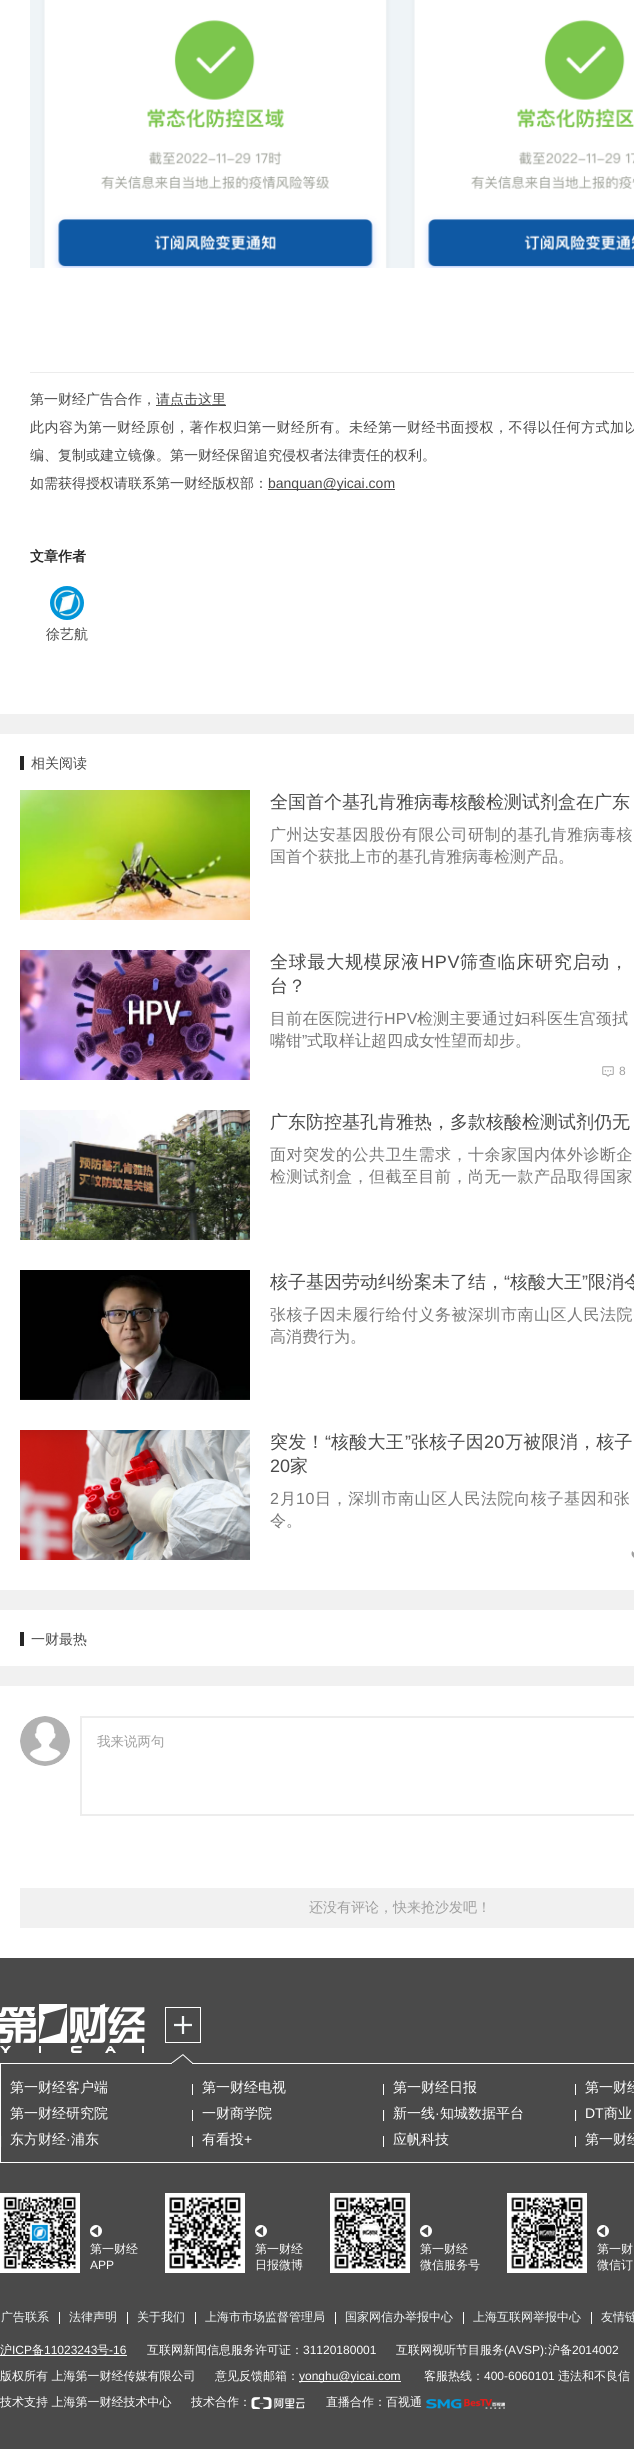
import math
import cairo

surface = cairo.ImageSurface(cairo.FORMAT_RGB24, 634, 2449)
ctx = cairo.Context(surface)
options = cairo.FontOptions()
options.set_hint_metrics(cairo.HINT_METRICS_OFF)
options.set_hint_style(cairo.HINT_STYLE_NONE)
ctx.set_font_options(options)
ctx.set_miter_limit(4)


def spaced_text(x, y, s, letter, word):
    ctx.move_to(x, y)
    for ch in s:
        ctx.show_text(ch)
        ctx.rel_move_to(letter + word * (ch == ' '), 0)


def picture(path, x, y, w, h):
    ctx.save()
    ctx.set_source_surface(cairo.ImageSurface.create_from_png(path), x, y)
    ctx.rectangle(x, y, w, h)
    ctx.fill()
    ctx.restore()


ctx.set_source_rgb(0.945, 0.945, 0.945)
ctx.paint()
ctx.set_source_rgb(1, 1, 1)
ctx.rectangle(0, 0, 634, 714)
ctx.fill()
picture("img1.png", 30, 0, 604, 268)
ctx.set_source_rgb(0.922, 0.922, 0.922)
ctx.rectangle(30, 372, 604, 1)
ctx.fill()
ctx.select_font_face("WenQuanYi Zen Hei Medium")
ctx.set_font_size(14)
ctx.set_source_rgb(0.29, 0.29, 0.29)
ctx.move_to(30, 404)
ctx.show_text("第一财经广告合作，")
ctx.rectangle(156, 405, 70, 1)
ctx.fill()
ctx.move_to(156, 404)
ctx.show_text("请点击这里")
spaced_text(30, 432, "此内容为第一财经原创，著作权归第一财经所有。未经第一财经书面授权，不得以任何方式加以", 0.5, 0)
ctx.move_to(30, 460)
ctx.show_text("编、复制或建立镜像。第一财经保留追究侵权者法律责任的权利。")
ctx.move_to(30, 488)
ctx.show_text("如需获得授权请联系第一财经版权部：")
ctx.rectangle(268, 489, 127, 1)
ctx.fill()
ctx.select_font_face("Liberation Sans")
ctx.move_to(268, 488)
ctx.show_text("banquan@yicai.com")
ctx.select_font_face("WenQuanYi Zen Hei", cairo.FONT_SLANT_NORMAL, cairo.FONT_WEIGHT_BOLD)
ctx.set_source_rgb(0.149, 0.149, 0.149)
ctx.move_to(30, 561)
ctx.show_text("文章作者")
picture("img2.png", 50, 586, 34, 34)
ctx.select_font_face("WenQuanYi Zen Hei Medium")
ctx.set_source_rgb(0.29, 0.29, 0.29)
ctx.move_to(46, 639)
ctx.show_text("徐艺航")
ctx.set_source_rgb(1, 1, 1)
ctx.rectangle(0, 734, 634, 856)
ctx.fill()
ctx.set_source_rgb(0.149, 0.149, 0.149)
ctx.rectangle(20, 756, 4, 14)
ctx.fill()
ctx.set_source_rgb(0.29, 0.29, 0.29)
ctx.move_to(31, 768)
ctx.show_text("相关阅读")
picture("img3.png", 20, 790, 230, 130)
ctx.set_font_size(18)
ctx.move_to(270, 808)
ctx.show_text("全国首个基孔肯雅病毒核酸检测试剂盒在广东")
ctx.set_font_size(16)
ctx.set_source_rgb(0.467, 0.467, 0.467)
spaced_text(270, 840, "广州达安基因股份有限公司研制的基孔肯雅病毒核", 0.5, 0)
ctx.move_to(270, 862)
ctx.show_text("国首个获批上市的基孔肯雅病毒检测产品。")
picture("img4.png", 20, 950, 230, 130)
ctx.set_font_size(18)
ctx.set_source_rgb(0.29, 0.29, 0.29)
spaced_text(270, 968, "全球最大规模尿液", 0.75, 0)
ctx.select_font_face("Liberation Sans")
spaced_text(421, 968, "HPV", 0.75, 0)
ctx.select_font_face("WenQuanYi Zen Hei Medium")
spaced_text(460, 968, "筛查临床研究启动，", 0.75, 0)
ctx.move_to(270, 992)
ctx.show_text("台？")
ctx.set_font_size(16)
ctx.set_source_rgb(0.467, 0.467, 0.467)
spaced_text(270, 1024, "目前在医院进行", 0.25, 0)
ctx.select_font_face("Liberation Sans")
spaced_text(384, 1024, "HPV", 0.25, 0)
ctx.select_font_face("WenQuanYi Zen Hei Medium")
spaced_text(417, 1024, "检测主要通过妇科医生宫颈拭", 0.25, 0)
ctx.move_to(270, 1046)
ctx.show_text("嘴钳")
ctx.select_font_face("Liberation Sans")
ctx.move_to(302, 1046)
ctx.show_text("”")
ctx.select_font_face("WenQuanYi Zen Hei Medium")
ctx.move_to(307, 1046)
ctx.show_text("式取样让超四成女性望而却步。")
picture("img5.png", 602, 1066, 12, 11)
ctx.select_font_face("Liberation Sans")
ctx.set_font_size(12)
ctx.set_source_rgb(0.624, 0.624, 0.624)
ctx.move_to(619, 1075)
ctx.show_text("8")
picture("img6.png", 20, 1110, 230, 130)
ctx.select_font_face("WenQuanYi Zen Hei Medium")
ctx.set_font_size(18)
ctx.set_source_rgb(0.29, 0.29, 0.29)
ctx.move_to(270, 1128)
ctx.show_text("广东防控基孔肯雅热，多款核酸检测试剂仍无")
ctx.set_font_size(16)
ctx.set_source_rgb(0.467, 0.467, 0.467)
spaced_text(270, 1160, "面对突发的公共卫生需求，十余家国内体外诊断企", 0.5, 0)
spaced_text(270, 1182, "检测试剂盒，但截至目前，尚无一款产品取得国家", 0.5, 0)
picture("img7.png", 20, 1270, 230, 130)
ctx.set_font_size(18)
ctx.set_source_rgb(0.29, 0.29, 0.29)
ctx.move_to(270, 1288)
ctx.show_text("核子基因劳动纠纷案未了结，")
ctx.select_font_face("Liberation Sans")
ctx.move_to(504, 1288)
ctx.show_text("“")
ctx.select_font_face("WenQuanYi Zen Hei Medium")
ctx.move_to(510, 1288)
ctx.show_text("核酸大王")
ctx.select_font_face("Liberation Sans")
ctx.move_to(582, 1288)
ctx.show_text("”")
ctx.select_font_face("WenQuanYi Zen Hei Medium")
ctx.move_to(588, 1288)
ctx.show_text("限消令")
ctx.set_font_size(16)
ctx.set_source_rgb(0.467, 0.467, 0.467)
spaced_text(270, 1320, "张核子因未履行给付义务被深圳市南山区人民法院", 0.5, 0)
ctx.move_to(270, 1342)
ctx.show_text("高消费行为。")
picture("img8.png", 20, 1430, 230, 130)
ctx.set_font_size(18)
ctx.set_source_rgb(0.29, 0.29, 0.29)
spaced_text(270, 1448, "突发！", 0.25, 0)
ctx.select_font_face("Liberation Sans")
spaced_text(325, 1448, "“", 0.25, 0)
ctx.select_font_face("WenQuanYi Zen Hei Medium")
spaced_text(331, 1448, "核酸大王", 0.25, 0)
ctx.select_font_face("Liberation Sans")
spaced_text(405, 1448, "”", 0.25, 0)
ctx.select_font_face("WenQuanYi Zen Hei Medium")
spaced_text(411, 1448, "张核子因", 0.25, 0)
ctx.select_font_face("Liberation Sans")
spaced_text(484, 1448, "20", 0.25, 0)
ctx.select_font_face("WenQuanYi Zen Hei Medium")
spaced_text(505, 1448, "万被限消，核子", 0.25, 0)
ctx.select_font_face("Liberation Sans")
ctx.move_to(270, 1472)
ctx.show_text("20")
ctx.select_font_face("WenQuanYi Zen Hei Medium")
ctx.move_to(290, 1472)
ctx.show_text("家")
ctx.select_font_face("Liberation Sans")
ctx.set_font_size(16)
ctx.set_source_rgb(0.467, 0.467, 0.467)
spaced_text(270, 1504, "2", 0.6, 0)
ctx.select_font_face("WenQuanYi Zen Hei Medium")
spaced_text(280, 1504, "月", 0.6, 0)
ctx.select_font_face("Liberation Sans")
spaced_text(296, 1504, "10", 0.6, 0)
ctx.select_font_face("WenQuanYi Zen Hei Medium")
spaced_text(315, 1504, "日，深圳市南山区人民法院向核子基因和张", 0.6, 0)
ctx.move_to(270, 1526)
ctx.show_text("令。")
picture("img9.png", 631, 1551, 3, 7)
ctx.set_source_rgb(1, 1, 1)
ctx.rectangle(0, 1610, 634, 56)
ctx.fill()
ctx.set_source_rgb(0.149, 0.149, 0.149)
ctx.rectangle(20, 1632, 4, 14)
ctx.fill()
ctx.set_font_size(14)
ctx.set_source_rgb(0.29, 0.29, 0.29)
ctx.move_to(31, 1644)
ctx.show_text("一财最热")
ctx.set_source_rgb(1, 1, 1)
ctx.rectangle(0, 1686, 634, 272)
ctx.fill()
picture("img10.png", 20, 1716, 50, 50)
ctx.rectangle(81, 1717, 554, 98)
ctx.set_source_rgb(0.929, 0.929, 0.929)
ctx.stroke()
ctx.set_font_size(13.5)
ctx.set_source_rgb(0.624, 0.624, 0.624)
ctx.move_to(97, 1746)
ctx.show_text("我来说两句")
ctx.set_source_rgb(0.945, 0.945, 0.945)
ctx.rectangle(20, 1888, 614, 40)
ctx.fill()
ctx.set_font_size(14)
ctx.set_source_rgb(0.624, 0.624, 0.624)
ctx.move_to(309, 1912)
ctx.show_text("还没有评论，快来抢沙发吧！")
ctx.set_source_rgb(0.29, 0.29, 0.29)
ctx.rectangle(0, 1958, 634, 491)
ctx.fill()
picture("img11.png", 0, 2003, 201, 50)
ctx.rectangle(0.5, 2063.5, 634, 99)
ctx.set_source_rgb(1, 1, 1)
ctx.set_line_width(1)
ctx.stroke()
picture("img12.png", 171, 2054, 22, 10)
ctx.move_to(10, 2092)
ctx.show_text("第一财经客户端")
ctx.move_to(202, 2092)
ctx.show_text("第一财经电视")
ctx.rectangle(192, 2084, 1, 11)
ctx.fill()
ctx.move_to(393, 2092)
ctx.show_text("第一财经日报")
ctx.rectangle(383, 2084, 1, 11)
ctx.fill()
ctx.move_to(585, 2092)
ctx.show_text("第一财经")
ctx.rectangle(575, 2084, 1, 11)
ctx.fill()
ctx.move_to(10, 2118)
ctx.show_text("第一财经研究院")
ctx.move_to(202, 2118)
ctx.show_text("一财商学院")
ctx.rectangle(192, 2110, 1, 11)
ctx.fill()
picture("img13.png", 383, 2110, 2, 11)
ctx.move_to(393, 2118)
ctx.show_text("新一线")
ctx.select_font_face("Liberation Sans")
ctx.move_to(435, 2118)
ctx.show_text("·")
ctx.select_font_face("WenQuanYi Zen Hei Medium")
ctx.move_to(440, 2118)
ctx.show_text("知城数据平台")
picture("img13.png", 575, 2110, 2, 11)
ctx.select_font_face("Liberation Sans")
ctx.move_to(585, 2118)
ctx.show_text("DT")
ctx.select_font_face("WenQuanYi Zen Hei Medium")
ctx.move_to(604, 2118)
ctx.show_text("商业")
ctx.move_to(10, 2144)
ctx.show_text("东方财经")
ctx.set_source_rgb(0.333, 0.333, 0.333)
ctx.rectangle(1, 2136, 1, 11)
ctx.fill()
ctx.select_font_face("Liberation Sans")
ctx.set_source_rgb(1, 1, 1)
ctx.move_to(66, 2144)
ctx.show_text("·")
ctx.select_font_face("WenQuanYi Zen Hei Medium")
ctx.move_to(71, 2144)
ctx.show_text("浦东")
ctx.move_to(202, 2144)
ctx.show_text("有看投")
ctx.rectangle(192, 2136, 1, 11)
ctx.fill()
ctx.select_font_face("Liberation Sans")
ctx.move_to(244, 2144)
ctx.show_text("+")
ctx.select_font_face("WenQuanYi Zen Hei Medium")
ctx.move_to(393, 2144)
ctx.show_text("应帆科技")
ctx.rectangle(383, 2136, 1, 11)
ctx.fill()
ctx.move_to(585, 2144)
ctx.show_text("第一财经")
ctx.rectangle(575, 2136, 1, 11)
ctx.fill()
picture("img14.png", 0, 2193, 80, 80)
picture("img15.png", 90, 2225, 12, 12)
ctx.set_font_size(12)
ctx.move_to(90, 2253)
ctx.show_text("第一财经")
ctx.select_font_face("Liberation Sans")
ctx.move_to(90, 2269)
ctx.show_text("APP")
picture("img16.png", 165, 2193, 80, 80)
picture("img15.png", 255, 2225, 12, 12)
ctx.select_font_face("WenQuanYi Zen Hei Medium")
ctx.move_to(255, 2253)
ctx.show_text("第一财经")
ctx.move_to(255, 2269)
ctx.show_text("日报微博")
picture("img17.png", 330, 2193, 80, 80)
picture("img15.png", 420, 2225, 12, 12)
ctx.move_to(420, 2253)
ctx.show_text("第一财经")
ctx.move_to(420, 2269)
ctx.show_text("微信服务号")
picture("img18.png", 507, 2193, 80, 80)
picture("img15.png", 597, 2225, 12, 12)
ctx.move_to(597, 2253)
ctx.show_text("第一财")
ctx.move_to(597, 2269)
ctx.show_text("微信订")
ctx.set_source_rgb(0.957, 0.973, 0.976)
ctx.move_to(1, 2321)
ctx.show_text("广告联系")
ctx.move_to(69, 2321)
ctx.show_text("法律声明")
ctx.set_source_rgb(1, 1, 1)
ctx.rectangle(59, 2312, 1, 12)
ctx.fill()
ctx.set_source_rgb(0.957, 0.973, 0.976)
ctx.move_to(137, 2321)
ctx.show_text("关于我们")
ctx.set_source_rgb(1, 1, 1)
ctx.rectangle(127, 2312, 1, 12)
ctx.fill()
ctx.set_source_rgb(0.957, 0.973, 0.976)
ctx.move_to(205, 2321)
ctx.show_text("上海市市场监督管理局")
ctx.set_source_rgb(1, 1, 1)
ctx.rectangle(195, 2312, 1, 12)
ctx.fill()
ctx.set_source_rgb(0.957, 0.973, 0.976)
ctx.move_to(345, 2321)
ctx.show_text("国家网信办举报中心")
ctx.set_source_rgb(1, 1, 1)
ctx.rectangle(335, 2312, 1, 12)
ctx.fill()
ctx.set_source_rgb(0.957, 0.973, 0.976)
ctx.move_to(473, 2321)
ctx.show_text("上海互联网举报中心")
ctx.set_source_rgb(1, 1, 1)
ctx.rectangle(463, 2312, 1, 12)
ctx.fill()
ctx.set_source_rgb(0.957, 0.973, 0.976)
ctx.move_to(601, 2321)
ctx.show_text("友情链")
ctx.set_source_rgb(1, 1, 1)
ctx.rectangle(591, 2312, 1, 12)
ctx.fill()
ctx.rectangle(0, 2355, 127, 1)
ctx.fill()
ctx.move_to(0, 2354)
ctx.show_text("沪")
ctx.select_font_face("Liberation Sans")
ctx.move_to(12, 2354)
ctx.show_text("ICP")
ctx.select_font_face("WenQuanYi Zen Hei Medium")
ctx.move_to(32, 2354)
ctx.show_text("备")
ctx.select_font_face("Liberation Sans")
ctx.move_to(44, 2354)
ctx.show_text("11023243")
ctx.select_font_face("WenQuanYi Zen Hei Medium")
ctx.move_to(97, 2354)
ctx.show_text("号")
ctx.select_font_face("Liberation Sans")
ctx.move_to(109, 2354)
ctx.show_text("-16")
ctx.select_font_face("WenQuanYi Zen Hei Medium")
ctx.move_to(147, 2354)
ctx.show_text("互联网新闻信息服务许可证：")
ctx.select_font_face("Liberation Sans")
ctx.move_to(303, 2354)
ctx.show_text("31120180001")
ctx.select_font_face("WenQuanYi Zen Hei Medium")
ctx.move_to(396, 2354)
ctx.show_text("互联网视听节目服务")
ctx.select_font_face("Liberation Sans")
ctx.move_to(504, 2354)
ctx.show_text("(AVSP):")
ctx.select_font_face("WenQuanYi Zen Hei Medium")
ctx.move_to(548, 2354)
ctx.show_text("沪备")
ctx.select_font_face("Liberation Sans")
ctx.move_to(572, 2354)
ctx.show_text("2014002")
ctx.select_font_face("WenQuanYi Zen Hei Medium")
ctx.move_to(0, 2380)
ctx.show_text("版权所有 上海第一财经传媒有限公司")
ctx.move_to(215, 2380)
ctx.show_text("意见反馈邮箱：")
ctx.rectangle(299, 2381, 102, 1)
ctx.fill()
ctx.select_font_face("Liberation Sans")
ctx.move_to(299, 2380)
ctx.show_text("yonghu@yicai.com")
ctx.select_font_face("WenQuanYi Zen Hei Medium")
ctx.move_to(424, 2380)
ctx.show_text("客服热线：")
ctx.select_font_face("Liberation Sans")
ctx.move_to(484, 2380)
ctx.show_text("400-6060101")
ctx.select_font_face("WenQuanYi Zen Hei Medium")
ctx.move_to(558, 2380)
ctx.show_text("违法和不良信")
ctx.move_to(0, 2406)
ctx.show_text("技术支持 上海第一财经技术中心")
ctx.move_to(191, 2406)
ctx.show_text("技术合作：")
picture("img19.png", 251, 2397, 54, 12)
ctx.move_to(326, 2406)
ctx.show_text("直播合作：百视通")
picture("img20.png", 426, 2399, 79, 10)
surface.write_to_png("page.png")
